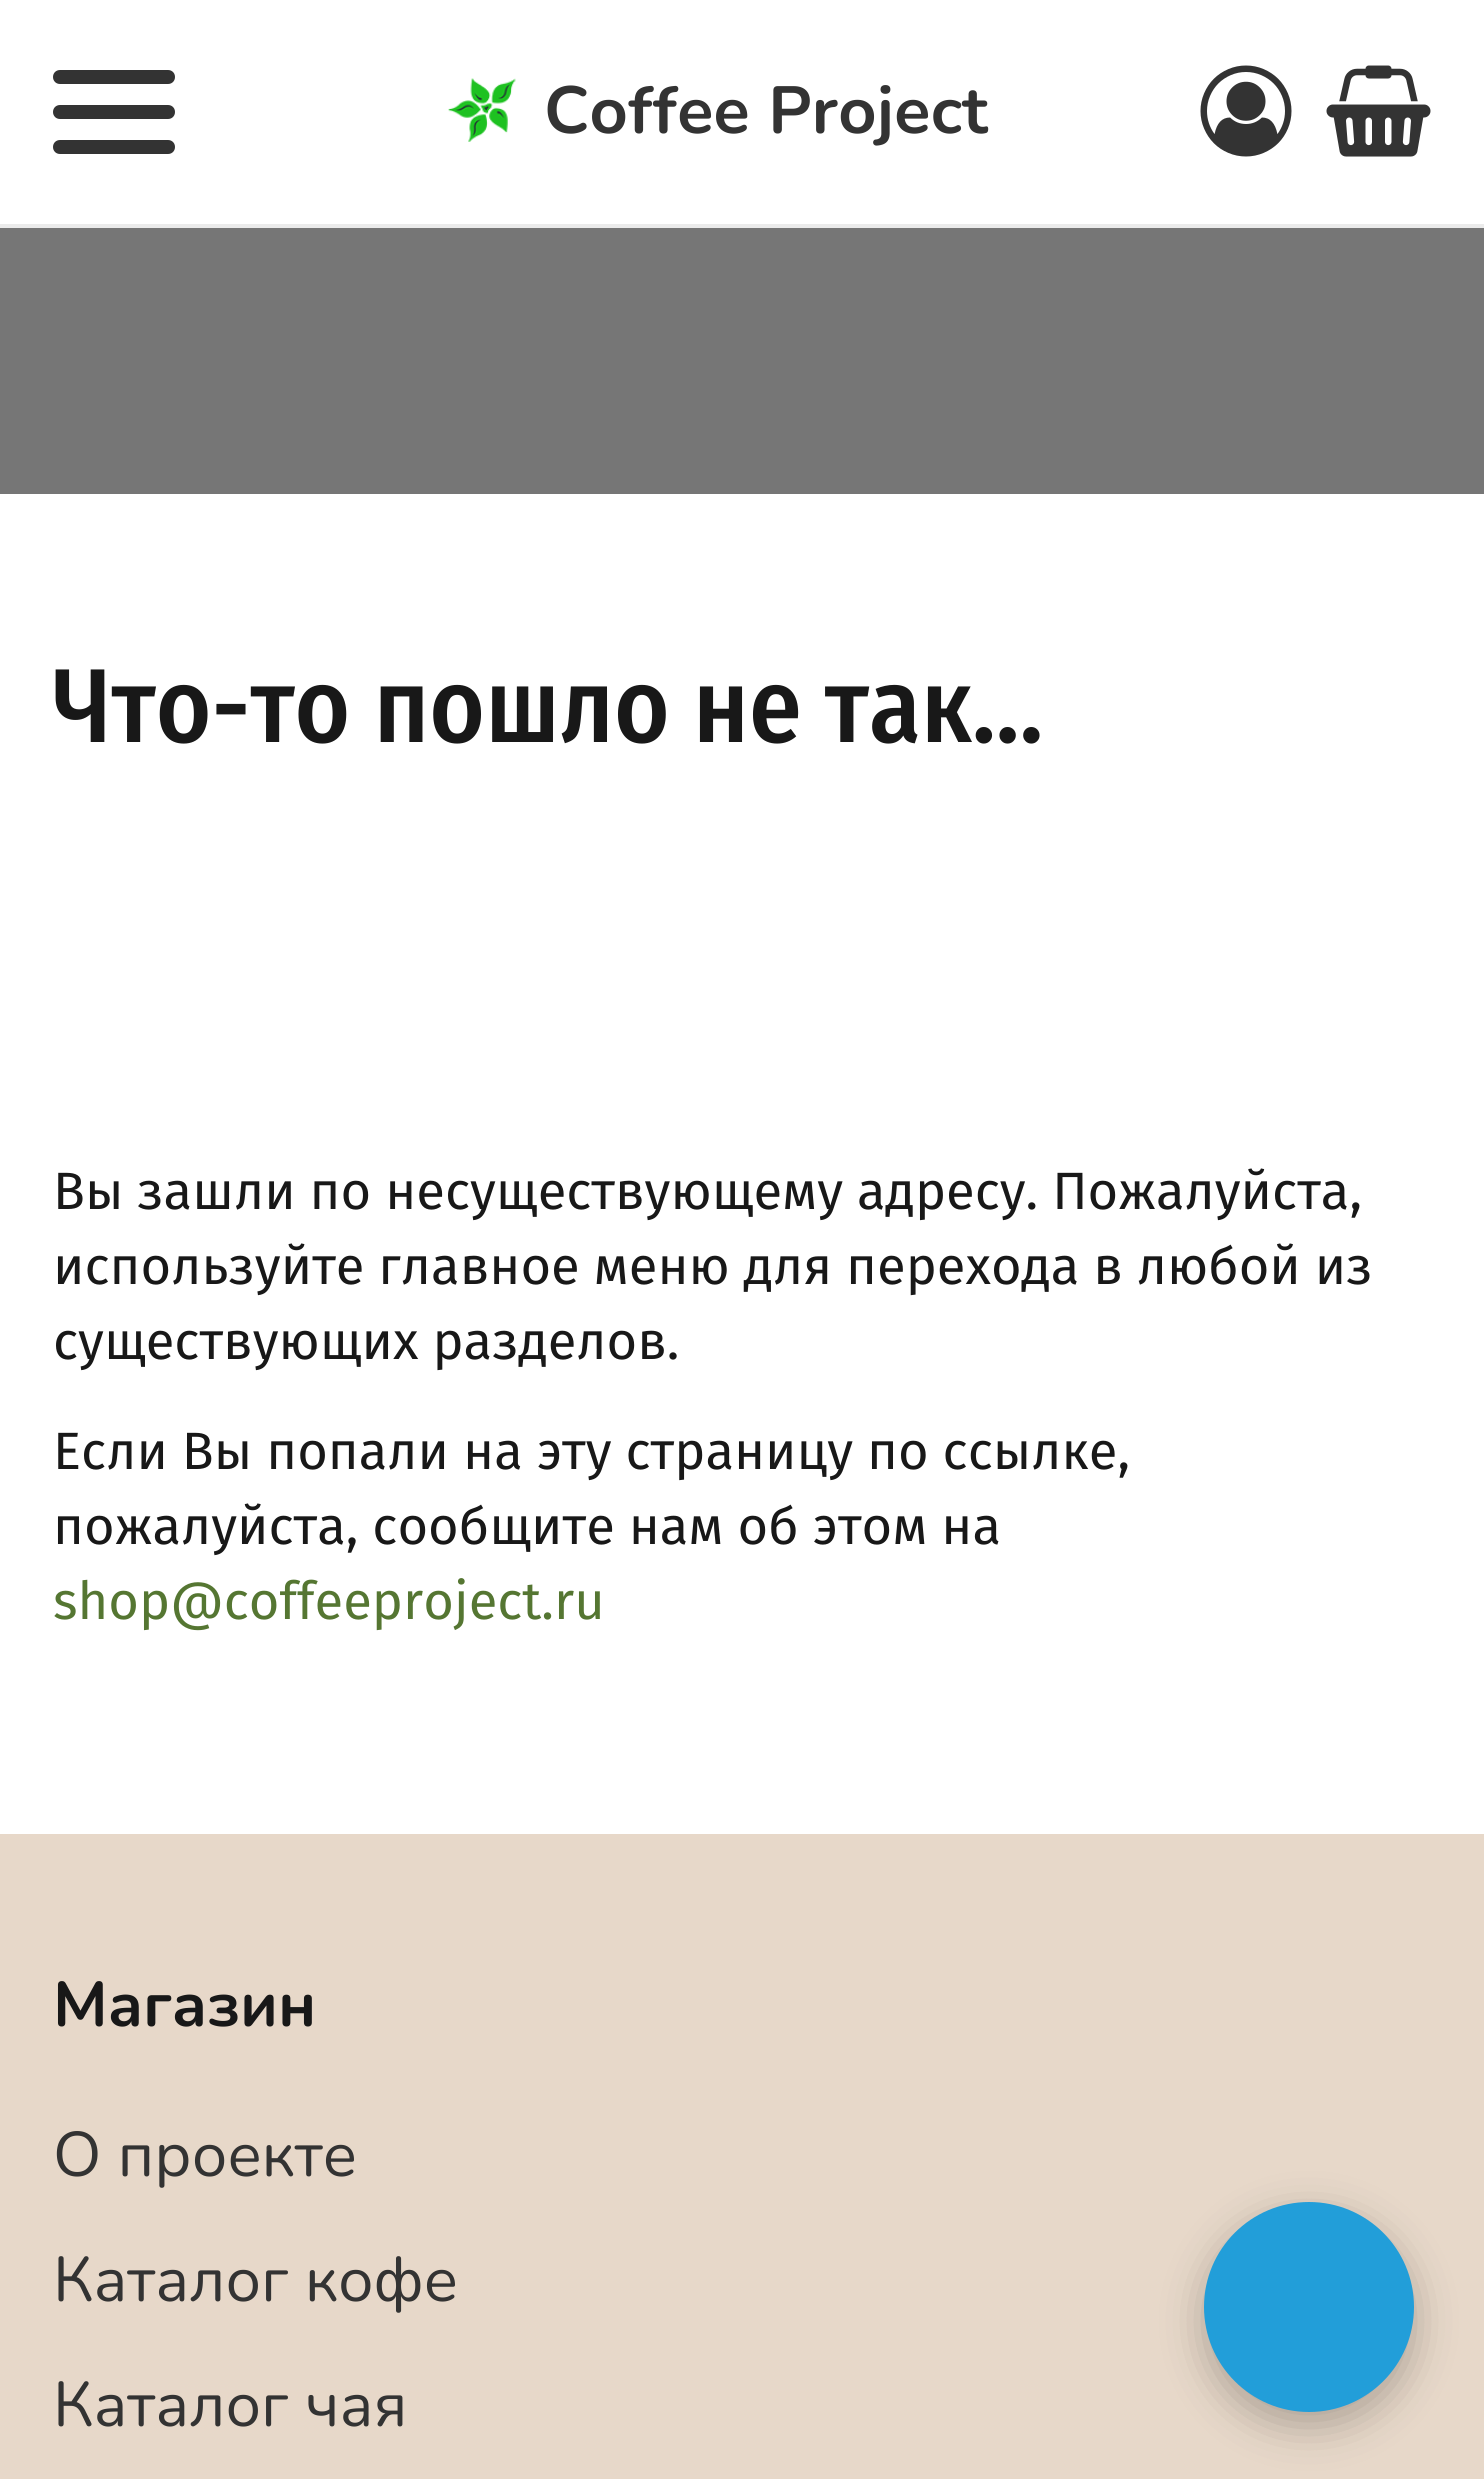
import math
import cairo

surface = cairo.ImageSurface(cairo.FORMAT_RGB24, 1484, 2479)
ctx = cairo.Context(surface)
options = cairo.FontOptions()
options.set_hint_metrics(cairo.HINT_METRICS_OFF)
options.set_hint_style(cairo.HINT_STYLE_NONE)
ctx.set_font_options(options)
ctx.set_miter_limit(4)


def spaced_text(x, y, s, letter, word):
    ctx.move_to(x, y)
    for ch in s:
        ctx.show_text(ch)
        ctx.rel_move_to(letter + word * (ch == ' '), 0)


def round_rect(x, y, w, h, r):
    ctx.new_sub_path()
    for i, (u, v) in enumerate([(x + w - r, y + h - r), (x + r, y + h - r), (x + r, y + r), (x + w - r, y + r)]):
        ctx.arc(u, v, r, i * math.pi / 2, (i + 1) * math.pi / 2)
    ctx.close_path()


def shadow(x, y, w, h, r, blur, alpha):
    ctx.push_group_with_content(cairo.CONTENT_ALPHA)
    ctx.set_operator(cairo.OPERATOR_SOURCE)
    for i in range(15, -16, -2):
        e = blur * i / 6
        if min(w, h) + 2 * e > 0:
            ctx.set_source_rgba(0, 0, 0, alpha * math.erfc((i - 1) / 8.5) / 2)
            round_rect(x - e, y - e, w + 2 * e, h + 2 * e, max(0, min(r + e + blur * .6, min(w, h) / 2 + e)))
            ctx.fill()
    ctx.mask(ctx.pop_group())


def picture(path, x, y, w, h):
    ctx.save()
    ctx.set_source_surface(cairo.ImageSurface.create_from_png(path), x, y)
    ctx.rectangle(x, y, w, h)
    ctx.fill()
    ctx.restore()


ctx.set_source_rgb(1, 1, 1)
ctx.paint()
ctx.set_source_rgb(0.918, 0.918, 0.918)
ctx.rectangle(0, 224, 1484, 4)
ctx.fill()
ctx.set_source_rgb(0.2, 0.2, 0.2)
ctx.new_path()
ctx.move_to(60, 70)
ctx.line_to(116, 70)
ctx.line_to(116, 84)
ctx.line_to(60, 84)
ctx.curve_to(56, 84, 53, 81, 53, 77)
ctx.curve_to(53, 73, 56, 70, 60, 70)
ctx.close_path()
ctx.fill()
ctx.new_path()
ctx.move_to(116, 70)
ctx.line_to(168, 70)
ctx.curve_to(172, 70, 175, 73, 175, 77)
ctx.curve_to(175, 81, 172, 84, 168, 84)
ctx.line_to(116, 84)
ctx.close_path()
ctx.fill()
ctx.new_path()
ctx.move_to(60, 105)
ctx.line_to(116, 105)
ctx.line_to(116, 119)
ctx.line_to(60, 119)
ctx.curve_to(56, 119, 53, 116, 53, 112)
ctx.curve_to(53, 108, 56, 105, 60, 105)
ctx.close_path()
ctx.fill()
ctx.new_path()
ctx.move_to(116, 105)
ctx.line_to(168, 105)
ctx.curve_to(172, 105, 175, 108, 175, 112)
ctx.curve_to(175, 116, 172, 119, 168, 119)
ctx.line_to(116, 119)
ctx.close_path()
ctx.fill()
ctx.new_path()
ctx.move_to(60, 140)
ctx.line_to(116, 140)
ctx.line_to(116, 154)
ctx.line_to(60, 154)
ctx.curve_to(56, 154, 53, 151, 53, 147)
ctx.curve_to(53, 143, 56, 140, 60, 140)
ctx.close_path()
ctx.fill()
ctx.new_path()
ctx.move_to(116, 140)
ctx.line_to(168, 140)
ctx.curve_to(172, 140, 175, 143, 175, 147)
ctx.curve_to(175, 151, 172, 154, 168, 154)
ctx.line_to(116, 154)
ctx.close_path()
ctx.fill()
picture("img1.png", 448, 78, 68, 64)
ctx.select_font_face("Nunito ExtraLight")
ctx.set_font_size(66.5)
spaced_text(544, 133, "Coffee Project", 0.3, 0)
picture("img2.png", 1200, 65, 92, 92)
picture("img3.png", 1326, 65, 105, 92)
ctx.set_source_rgb(0.463, 0.463, 0.463)
ctx.rectangle(0, 228, 1484, 266)
ctx.fill()
ctx.select_font_face("Fira Sans Condensed Medium")
ctx.set_font_size(105)
ctx.set_source_rgb(0.094, 0.094, 0.094)
ctx.move_to(53, 742)
ctx.show_text("Что-то пошло не так...")
ctx.select_font_face("Fira Sans")
ctx.set_font_size(52.5)
ctx.move_to(53, 1209)
ctx.show_text("Вы зашли по несуществующему адресу. Пожалуйста,")
ctx.move_to(53, 1284)
ctx.show_text("используйте главное меню для перехода в любой из")
ctx.move_to(53, 1359)
ctx.show_text("существующих разделов.")
ctx.move_to(53, 1469)
ctx.show_text("Если Вы попали на эту страницу по ссылке,")
ctx.move_to(53, 1544)
ctx.show_text("пожалуйста, сообщите нам об этом на")
ctx.set_source_rgb(0.333, 0.463, 0.196)
ctx.move_to(53, 1619)
ctx.show_text("shop@coffeeproject.ru")
ctx.set_source_rgb(0.906, 0.847, 0.788)
ctx.rectangle(0, 1834, 1484, 645)
ctx.fill()
ctx.select_font_face("Nunito ExtraLight")
ctx.set_font_size(63)
ctx.set_source_rgb(0.094, 0.094, 0.094)
ctx.move_to(53, 2026)
ctx.show_text("Магазин")
ctx.select_font_face("Nunito")
ctx.set_source_rgb(0.2, 0.2, 0.2)
ctx.move_to(53, 2176)
ctx.show_text("О проекте")
ctx.move_to(53, 2301)
ctx.show_text("Каталог кофе")
ctx.move_to(53, 2426)
ctx.show_text("Каталог чая")
ctx.set_source_rgb(0, 0, 0)
shadow(1204, 2216, 210, 210, 105, 21, 0.25)
ctx.set_source_rgb(0.133, 0.62, 0.851)
ctx.arc(1309, 2307, 105, 0, 2 * math.pi)
ctx.fill()
surface.write_to_png("page.png")
